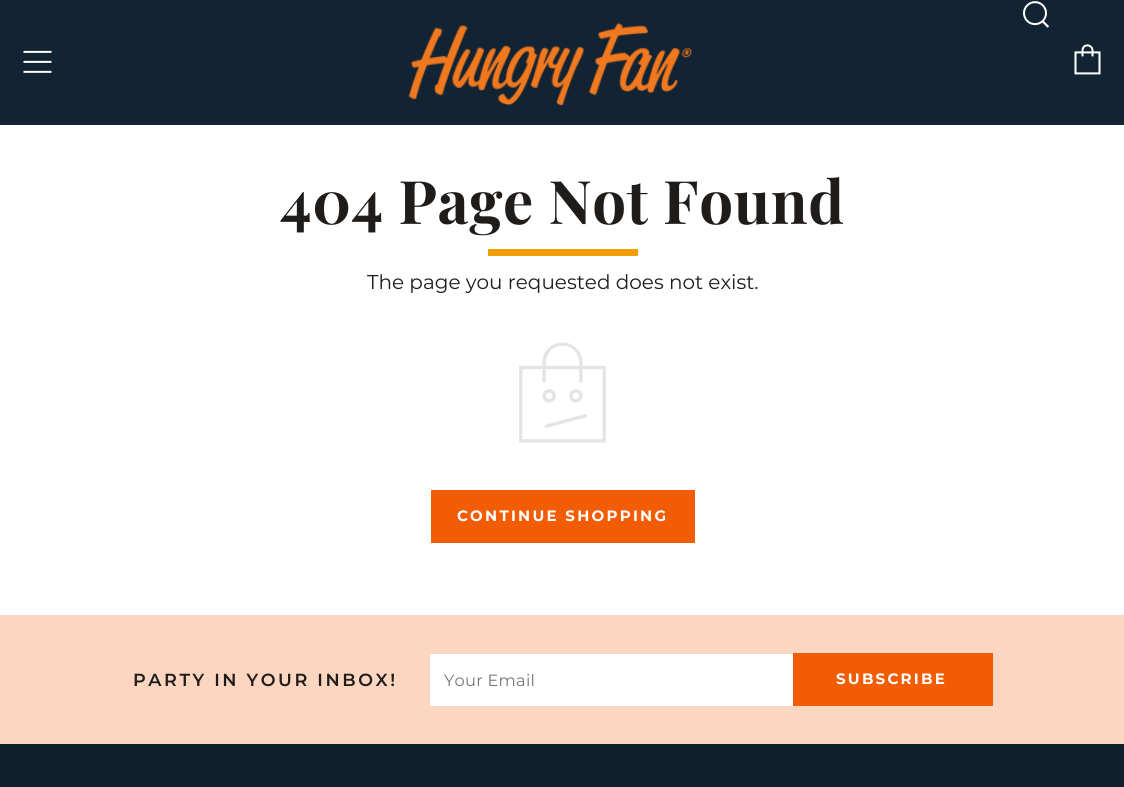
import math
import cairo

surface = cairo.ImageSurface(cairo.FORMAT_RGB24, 1124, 787)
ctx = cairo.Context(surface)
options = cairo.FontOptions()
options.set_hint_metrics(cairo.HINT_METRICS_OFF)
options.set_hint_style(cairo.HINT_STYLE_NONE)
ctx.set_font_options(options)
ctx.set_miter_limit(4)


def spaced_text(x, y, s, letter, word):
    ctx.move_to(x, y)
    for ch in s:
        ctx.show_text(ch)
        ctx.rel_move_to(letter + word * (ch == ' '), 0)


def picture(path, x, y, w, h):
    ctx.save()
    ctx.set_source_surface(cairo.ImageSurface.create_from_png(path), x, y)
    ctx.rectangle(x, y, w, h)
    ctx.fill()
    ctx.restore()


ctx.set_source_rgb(1, 1, 1)
ctx.paint()
ctx.set_source_rgb(0.071, 0.141, 0.2)
ctx.rectangle(0, 0, 1124, 125)
ctx.fill()
picture("img1.png", 1023, 1, 27, 27)
picture("img2.png", 23, 50, 29, 23)
picture("img3.png", 408, 23, 284, 83)
picture("img4.png", 1074, 44, 27, 31)
ctx.select_font_face("Playfair Display", cairo.FONT_SLANT_NORMAL, cairo.FONT_WEIGHT_BOLD)
ctx.set_font_size(60)
ctx.set_source_rgb(0.122, 0.11, 0.102)
spaced_text(280, 224, "404 Page Not Found", 0.6, 0)
ctx.set_source_rgb(0.949, 0.624, 0.02)
ctx.rectangle(488, 249, 150, 7)
ctx.fill()
ctx.select_font_face("Montserrat")
ctx.set_font_size(20)
ctx.set_source_rgb(0.122, 0.11, 0.102)
ctx.move_to(367, 289)
ctx.show_text("The page you requested does not exist.")
picture("img5.png", 519, 342, 87, 101)
ctx.set_source_rgb(0.949, 0.361, 0.02)
ctx.rectangle(431, 490, 264, 53)
ctx.fill()
ctx.select_font_face("Montserrat", cairo.FONT_SLANT_NORMAL, cairo.FONT_WEIGHT_BOLD)
ctx.set_font_size(15)
ctx.set_source_rgb(1, 1, 1)
spaced_text(457, 521, "CONTINUE SHOPPING", 2.25, 0)
ctx.set_source_rgb(0.988, 0.839, 0.753)
ctx.rectangle(0, 615, 1124, 129)
ctx.fill()
ctx.select_font_face("Montserrat SemiBold")
ctx.set_font_size(17.5)
ctx.set_source_rgb(0.122, 0.11, 0.102)
spaced_text(133, 686, "PARTY IN YOUR INBOX!", 2.6, 0)
ctx.set_source_rgb(1, 1, 1)
ctx.rectangle(430, 654, 363, 52)
ctx.fill()
ctx.select_font_face("Montserrat")
ctx.set_font_size(16.25)
ctx.set_source_rgb(0.459, 0.459, 0.459)
spaced_text(444, 686, "Your Email", 0.25, 0)
ctx.set_source_rgb(0.949, 0.361, 0.02)
ctx.rectangle(793, 653, 200, 53)
ctx.fill()
ctx.select_font_face("Montserrat", cairo.FONT_SLANT_NORMAL, cairo.FONT_WEIGHT_BOLD)
ctx.set_font_size(15)
ctx.set_source_rgb(1, 1, 1)
spaced_text(836, 684, "SUBSCRIBE", 2.25, 0)
ctx.set_source_rgb(0.063, 0.125, 0.176)
ctx.rectangle(0, 744, 1124, 43)
ctx.fill()
surface.write_to_png("page.png")
